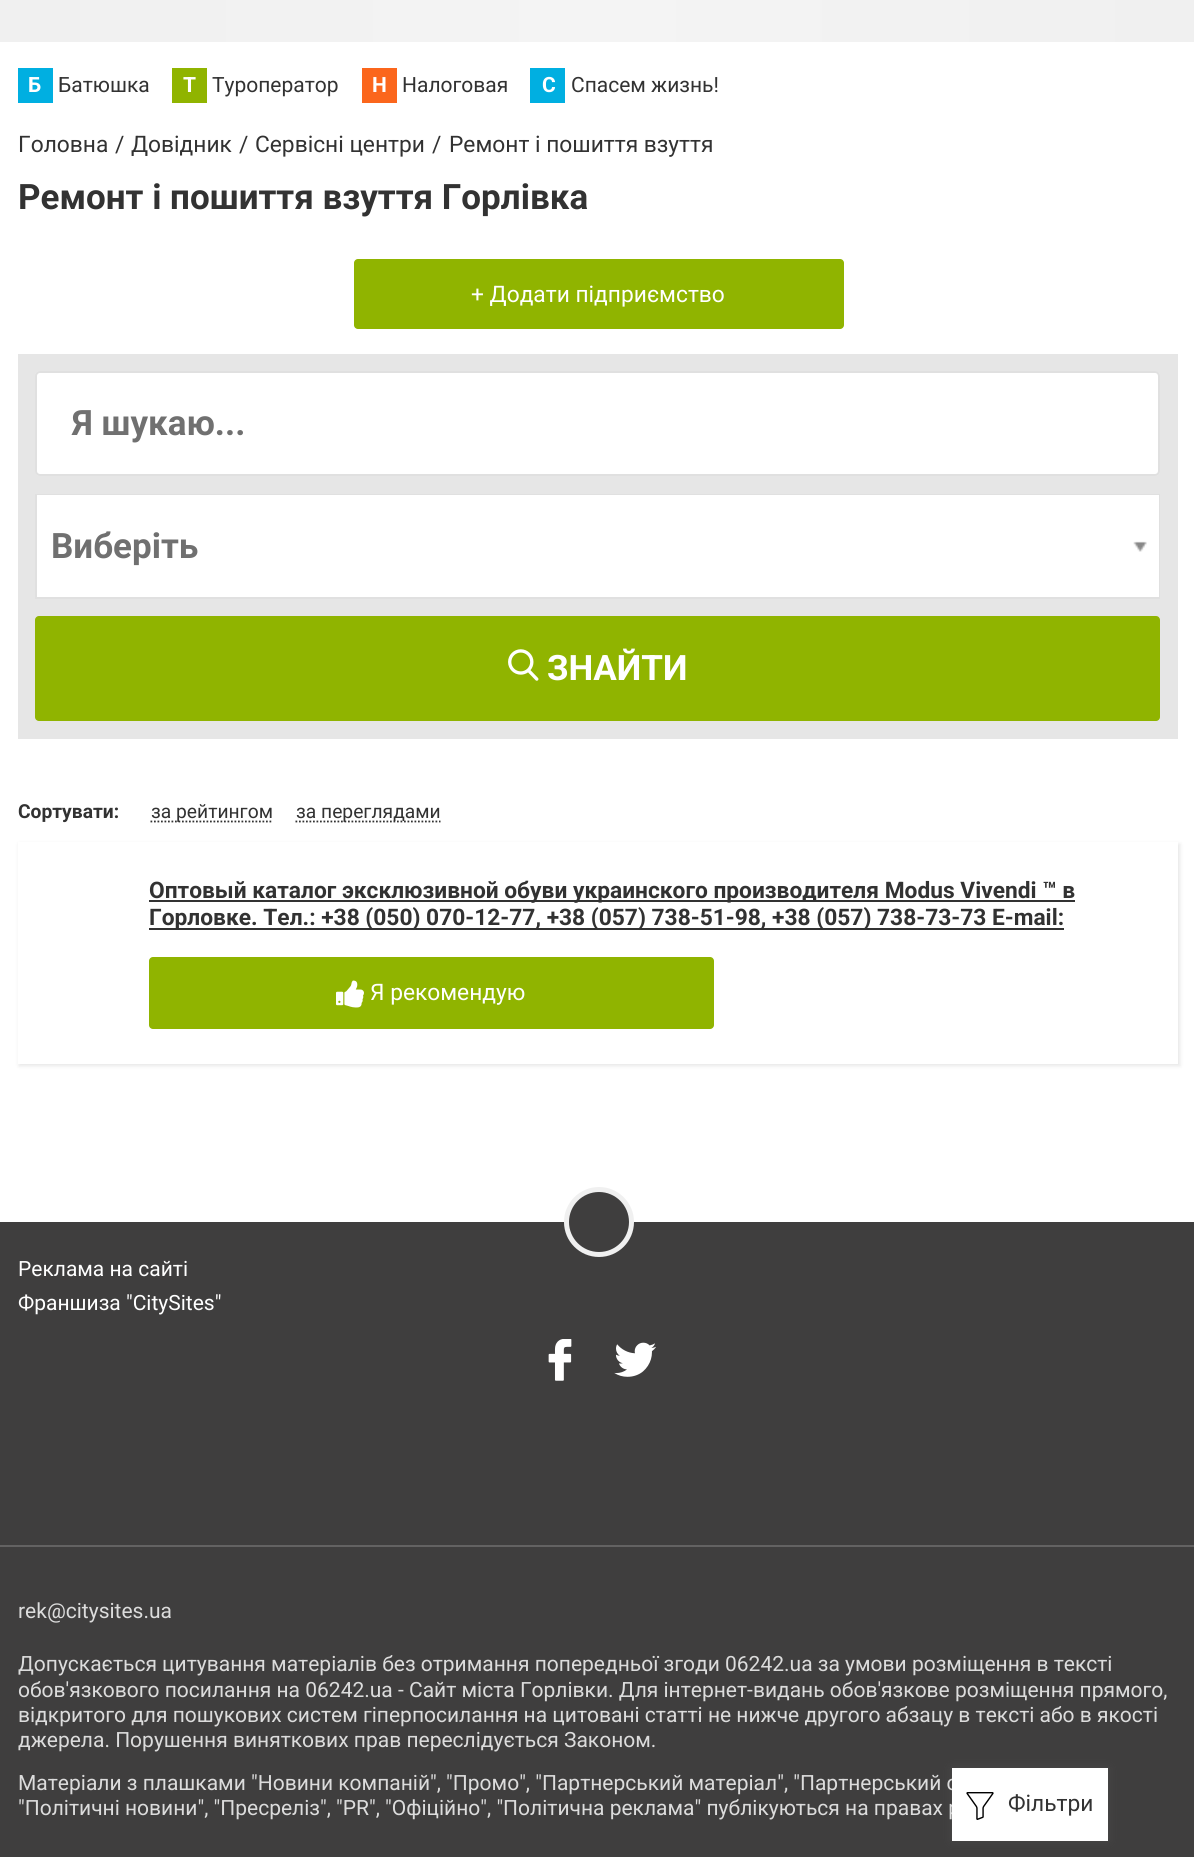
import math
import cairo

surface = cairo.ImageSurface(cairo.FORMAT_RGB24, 1194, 1857)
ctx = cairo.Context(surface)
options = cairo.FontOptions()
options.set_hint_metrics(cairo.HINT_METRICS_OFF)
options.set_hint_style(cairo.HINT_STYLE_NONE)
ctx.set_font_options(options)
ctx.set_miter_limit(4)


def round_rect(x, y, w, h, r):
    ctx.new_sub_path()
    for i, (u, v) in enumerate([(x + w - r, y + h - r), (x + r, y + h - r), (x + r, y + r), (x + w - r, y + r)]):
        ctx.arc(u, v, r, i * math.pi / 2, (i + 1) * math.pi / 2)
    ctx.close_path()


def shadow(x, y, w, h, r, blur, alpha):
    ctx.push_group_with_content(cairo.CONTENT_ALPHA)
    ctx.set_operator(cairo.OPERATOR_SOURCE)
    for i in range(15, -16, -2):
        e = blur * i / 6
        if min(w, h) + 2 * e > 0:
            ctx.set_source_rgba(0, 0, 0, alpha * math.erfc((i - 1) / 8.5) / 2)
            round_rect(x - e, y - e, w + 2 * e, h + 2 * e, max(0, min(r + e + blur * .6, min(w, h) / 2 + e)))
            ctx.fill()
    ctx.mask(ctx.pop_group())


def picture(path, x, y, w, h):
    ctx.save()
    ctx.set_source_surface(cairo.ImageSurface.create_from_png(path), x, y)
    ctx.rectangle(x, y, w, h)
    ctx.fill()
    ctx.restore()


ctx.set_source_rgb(1, 1, 1)
ctx.paint()
gradient = cairo.LinearGradient(0, -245, 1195, -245)
gradient.add_color_stop_rgba(0, 0.941, 0.941, 0.941, 1)
gradient.add_color_stop_rgba(0.5, 0.957, 0.957, 0.957, 1)
gradient.add_color_stop_rgba(1, 0.941, 0.941, 0.941, 1)
ctx.set_source(gradient)
ctx.rectangle(0, 0, 1194, 42)
ctx.fill()
ctx.set_source_rgb(0, 0.686, 0.882)
ctx.rectangle(18, 68, 35, 35)
ctx.fill()
ctx.select_font_face("Roboto", cairo.FONT_SLANT_NORMAL, cairo.FONT_WEIGHT_BOLD)
ctx.set_font_size(21)
ctx.set_source_rgb(1, 1, 1)
ctx.move_to(28, 92)
ctx.show_text("Б")
ctx.select_font_face("Roboto")
ctx.set_source_rgb(0.196, 0.196, 0.196)
ctx.move_to(58, 92)
ctx.show_text("Батюшка")
ctx.set_source_rgb(0.565, 0.706, 0)
ctx.rectangle(172, 68, 35, 35)
ctx.fill()
ctx.select_font_face("Roboto", cairo.FONT_SLANT_NORMAL, cairo.FONT_WEIGHT_BOLD)
ctx.set_source_rgb(1, 1, 1)
ctx.move_to(183, 92)
ctx.show_text("Т")
ctx.select_font_face("Roboto")
ctx.set_source_rgb(0.196, 0.196, 0.196)
ctx.move_to(212, 92)
ctx.show_text("Туроператор")
ctx.set_source_rgb(0.984, 0.4, 0.11)
ctx.rectangle(362, 68, 35, 35)
ctx.fill()
ctx.select_font_face("Roboto", cairo.FONT_SLANT_NORMAL, cairo.FONT_WEIGHT_BOLD)
ctx.set_source_rgb(1, 1, 1)
ctx.move_to(372, 92)
ctx.show_text("Н")
ctx.select_font_face("Roboto")
ctx.set_source_rgb(0.196, 0.196, 0.196)
ctx.move_to(402, 92)
ctx.show_text("Налоговая")
ctx.set_source_rgb(0, 0.686, 0.882)
ctx.rectangle(530, 68, 35, 35)
ctx.fill()
ctx.select_font_face("Roboto", cairo.FONT_SLANT_NORMAL, cairo.FONT_WEIGHT_BOLD)
ctx.set_source_rgb(1, 1, 1)
ctx.move_to(542, 92)
ctx.show_text("С")
ctx.select_font_face("Roboto")
ctx.set_source_rgb(0.196, 0.196, 0.196)
ctx.move_to(571, 92)
ctx.show_text("Спасем жизнь!")
ctx.set_font_size(22.75)
ctx.move_to(18, 152)
ctx.show_text("Головна")
ctx.move_to(115, 152)
ctx.show_text("/")
ctx.move_to(131, 152)
ctx.show_text("Довідник")
ctx.move_to(239, 152)
ctx.show_text("/")
ctx.move_to(255, 152)
ctx.show_text("Сервісні центри")
ctx.move_to(432, 152)
ctx.show_text("/")
ctx.move_to(449, 152)
ctx.show_text("Ремонт і пошиття взуття")
ctx.select_font_face("Roboto", cairo.FONT_SLANT_NORMAL, cairo.FONT_WEIGHT_BOLD)
ctx.set_font_size(35)
ctx.move_to(18, 209)
ctx.show_text("Ремонт і пошиття взуття Горлівка")
ctx.set_source_rgb(0.565, 0.706, 0)
round_rect(354, 259, 490, 70, 4)
ctx.fill()
ctx.select_font_face("Roboto")
ctx.set_font_size(22.75)
ctx.set_source_rgb(1, 1, 1)
ctx.move_to(471, 302)
ctx.show_text("+ Додати підприємство")
ctx.set_source_rgb(0.902, 0.902, 0.902)
ctx.rectangle(18, 354, 1160, 385)
ctx.fill()
ctx.set_source_rgb(1, 1, 1)
round_rect(35, 371, 1125, 105, 5)
ctx.fill()
round_rect(36, 372, 1123, 103, 4)
ctx.set_source_rgba(0.196, 0.196, 0.196, 0.15)
ctx.stroke()
ctx.select_font_face("Roboto", cairo.FONT_SLANT_NORMAL, cairo.FONT_WEIGHT_BOLD)
ctx.set_font_size(35)
ctx.set_source_rgb(0.439, 0.439, 0.439)
ctx.move_to(72, 435)
ctx.show_text("Я шукаю...")
ctx.rectangle(36, 495, 1123, 103)
ctx.set_source_rgb(0.878, 0.878, 0.878)
ctx.stroke()
ctx.set_source_rgb(1, 1, 1)
ctx.rectangle(37, 495, 1122, 102)
ctx.fill()
ctx.set_source_rgb(0.439, 0.439, 0.439)
ctx.move_to(51, 558)
ctx.show_text("Виберіть")
picture("img1.png", 1133, 541, 14, 11)
ctx.set_source_rgb(0.565, 0.706, 0)
round_rect(35, 616, 1125, 105, 4)
ctx.fill()
picture("img2.png", 508, 649, 31, 32)
ctx.set_source_rgb(1, 1, 1)
ctx.move_to(547, 680)
ctx.show_text("ЗНАЙТИ")
ctx.set_font_size(19.25)
ctx.set_source_rgb(0.196, 0.196, 0.196)
ctx.move_to(18, 818)
ctx.show_text("Сортувати:")
ctx.new_path()
ctx.move_to(150.5, 821.5)
ctx.line_to(272.5, 821.5)
ctx.set_line_width(1.8)
ctx.set_dash([1.75, 1.75])
ctx.stroke()
ctx.select_font_face("Roboto")
ctx.move_to(151, 818)
ctx.show_text("за рейтингом")
ctx.new_path()
ctx.move_to(295.5, 821.5)
ctx.line_to(440.5, 821.5)
ctx.stroke()
ctx.move_to(296, 818)
ctx.show_text("за переглядами")
ctx.set_source_rgb(0.353, 0.353, 0.353)
shadow(19, 844, 1161, 222, 0, 2, 0.15)
ctx.set_source_rgb(1, 1, 1)
ctx.rectangle(18, 842, 1160, 222)
ctx.fill()
ctx.set_source_rgb(0.196, 0.196, 0.196)
ctx.rectangle(149, 900, 926, 2)
ctx.fill()
ctx.select_font_face("Roboto", cairo.FONT_SLANT_NORMAL, cairo.FONT_WEIGHT_BOLD)
ctx.set_font_size(22.75)
ctx.move_to(149, 898)
ctx.show_text("Оптовый каталог эксклюзивной обуви украинского производителя Modus Vivendi ™ в")
ctx.rectangle(149, 928, 915, 2)
ctx.fill()
ctx.move_to(149, 925)
ctx.show_text("Горловке. Тел.: +38 (050) 070-12-77, +38 (057) 738-51-98, +38 (057) 738-73-73 E-mail:")
ctx.set_source_rgb(0.565, 0.706, 0)
round_rect(149, 957, 565, 72, 4)
ctx.fill()
picture("img3.png", 336, 980, 28, 28)
ctx.select_font_face("Roboto")
ctx.set_source_rgb(1, 1, 1)
ctx.move_to(370, 1000)
ctx.show_text("Я рекомендую")
ctx.set_source_rgb(0.247, 0.243, 0.243)
ctx.rectangle(0, 1222, 1194, 635)
ctx.fill()
ctx.set_source_rgb(0.388, 0.388, 0.388)
shadow(952, 1768, 156, 73, 0, 4.5, 0.25)
ctx.set_font_size(21)
ctx.set_source_rgb(0.863, 0.863, 0.863)
ctx.move_to(18, 1790)
ctx.show_text("Матеріали з плашками \"Новини компаній\", \"Промо\", \"Партнерський матеріал\", \"Партнерський с")
ctx.move_to(18, 1815)
ctx.show_text("\"Політичні новини\", \"Пресреліз\", \"PR\", \"Офіційно\", \"Політична реклама\" публікуються на правах р")
ctx.set_source_rgb(1, 1, 1)
ctx.rectangle(952, 1768, 156, 73)
ctx.fill()
picture("img4.png", 966, 1792, 28, 28)
ctx.set_font_size(22.75)
ctx.set_source_rgb(0.196, 0.196, 0.196)
ctx.move_to(1008, 1811)
ctx.show_text("Фільтри")
ctx.set_source_rgb(0.247, 0.243, 0.243)
ctx.new_path()
ctx.arc(599, 1222, 32.5, 0, 2 * math.pi)
ctx.fill_preserve()
ctx.set_source_rgb(0.941, 0.941, 0.941)
ctx.set_line_width(5)
ctx.set_dash([])
ctx.stroke()
ctx.set_font_size(21)
ctx.set_source_rgb(1, 1, 1)
ctx.move_to(18, 1276)
ctx.show_text("Реклама на сайті")
ctx.move_to(18, 1310)
ctx.show_text("Франшиза \"CitySites\"")
picture("img5.png", 548, 1339, 24, 42)
picture("img6.png", 614, 1342, 42, 35)
ctx.set_source_rgb(0.388, 0.384, 0.384)
ctx.rectangle(0, 1545, 1194, 2)
ctx.fill()
ctx.set_source_rgb(0.863, 0.863, 0.863)
ctx.move_to(18, 1618)
ctx.show_text("rek@citysites.ua")
ctx.move_to(18, 1671)
ctx.show_text("Допускається цитування матеріалів без отримання попередньої згоди 06242.ua за умови розміщення в тексті")
ctx.move_to(18, 1697)
ctx.show_text("обов'язкового посилання на 06242.ua - Сайт міста Горлівки. Для інтернет-видань обов'язкове розміщення прямого,")
ctx.move_to(18, 1722)
ctx.show_text("відкритого для пошукових систем гіперпосилання на цитовані статті не нижче другого абзацу в тексті або в якості")
ctx.move_to(18, 1747)
ctx.show_text("джерела. Порушення виняткових прав переслідується Законом.")
surface.write_to_png("page.png")
